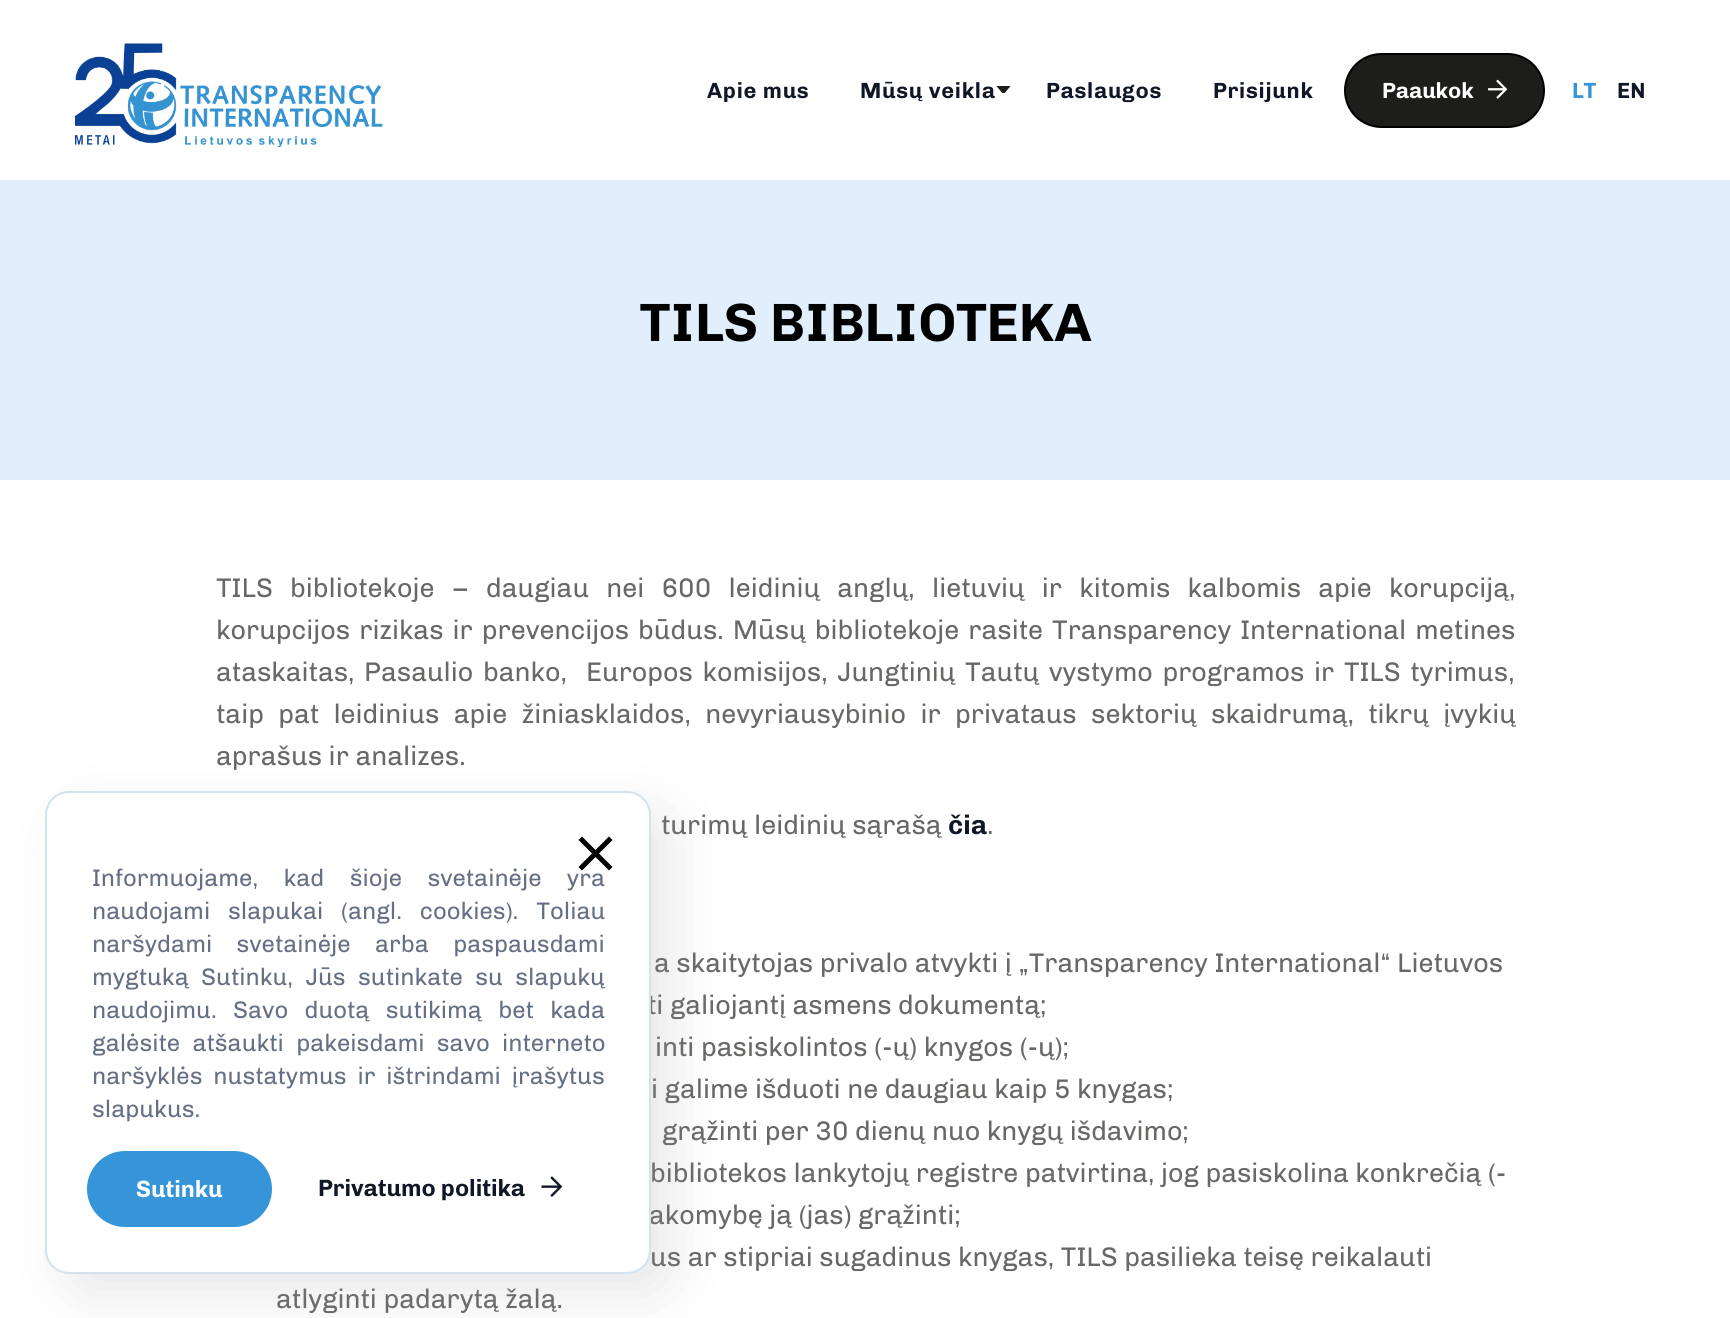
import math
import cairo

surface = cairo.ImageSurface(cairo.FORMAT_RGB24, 1730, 1318)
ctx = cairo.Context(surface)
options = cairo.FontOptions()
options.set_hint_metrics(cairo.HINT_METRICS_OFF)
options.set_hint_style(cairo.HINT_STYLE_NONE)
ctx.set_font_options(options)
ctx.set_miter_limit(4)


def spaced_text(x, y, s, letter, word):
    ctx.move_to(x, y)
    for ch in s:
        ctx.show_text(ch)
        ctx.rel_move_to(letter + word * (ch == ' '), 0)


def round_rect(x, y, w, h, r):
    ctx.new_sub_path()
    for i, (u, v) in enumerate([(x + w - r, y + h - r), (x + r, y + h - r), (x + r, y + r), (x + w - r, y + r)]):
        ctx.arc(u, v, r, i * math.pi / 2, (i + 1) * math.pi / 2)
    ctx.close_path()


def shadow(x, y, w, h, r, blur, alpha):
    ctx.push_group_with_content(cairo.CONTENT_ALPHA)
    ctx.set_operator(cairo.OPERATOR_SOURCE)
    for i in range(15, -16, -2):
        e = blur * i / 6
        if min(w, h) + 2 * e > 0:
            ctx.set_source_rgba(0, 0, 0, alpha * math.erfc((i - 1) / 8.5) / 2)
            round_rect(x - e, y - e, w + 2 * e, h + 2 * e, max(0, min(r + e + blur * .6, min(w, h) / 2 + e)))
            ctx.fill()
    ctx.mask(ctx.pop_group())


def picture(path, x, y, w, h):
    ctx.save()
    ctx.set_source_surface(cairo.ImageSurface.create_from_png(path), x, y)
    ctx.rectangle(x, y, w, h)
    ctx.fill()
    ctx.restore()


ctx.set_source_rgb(1, 1, 1)
ctx.paint()
picture("img1.png", 75, 43, 308, 104)
ctx.select_font_face("Chivo", cairo.FONT_SLANT_NORMAL, cairo.FONT_WEIGHT_BOLD)
ctx.set_font_size(22)
ctx.set_source_rgb(0.063, 0.094, 0.157)
spaced_text(707, 98, "Apie mus", 0.75, 0)
spaced_text(860, 98, "Mūsų veikla", 0.75, 0)
picture("img2.png", 996, 86, 15, 7)
spaced_text(1046, 98, "Paslaugos", 0.75, 0)
spaced_text(1213, 98, "Prisijunk", 0.75, 0)
ctx.set_source_rgb(0.114, 0.114, 0.106)
round_rect(1345, 54, 199, 73, 36.5)
ctx.fill_preserve()
ctx.set_source_rgb(0, 0, 0)
ctx.stroke()
ctx.set_source_rgb(1, 1, 1)
ctx.move_to(1382, 98)
ctx.show_text("Paaukok")
picture("img3.png", 1488, 79, 20, 20)
ctx.set_source_rgb(0.212, 0.584, 0.847)
ctx.move_to(1572, 98)
ctx.show_text("LT")
ctx.set_source_rgb(0.063, 0.094, 0.157)
ctx.move_to(1617, 98)
ctx.show_text("EN")
ctx.set_source_rgb(0.882, 0.933, 0.988)
ctx.rectangle(0, 180, 1730, 300)
ctx.fill()
ctx.set_font_size(54)
ctx.set_source_rgb(0, 0, 0)
ctx.move_to(640, 341)
ctx.show_text("TILS BIBLIOTEKA")
ctx.select_font_face("Chivo")
ctx.set_font_size(27)
ctx.set_source_rgb(0.408, 0.408, 0.404)
spaced_text(216, 597, "TILS bibliotekoje – daugiau nei 600 leidinių anglų, lietuvių ir kitomis kalbomis apie korupciją,", 0, 10.6)
spaced_text(216, 639, "korupcijos rizikas ir prevencijos būdus. Mūsų bibliotekoje rasite Transparency International metines", 0, 2.4)
spaced_text(216, 681, "ataskaitas, Pasaulio banko,  Europos komisijos, Jungtinių Tautų vystymo programos ir TILS tyrimus,", 0, 3)
spaced_text(216, 723, "taip pat leidinius apie žiniasklaidos, nevyriausybinio ir privataus sektorių skaidrumą, tikrų įvykių", 0, 7.75)
ctx.move_to(216, 765)
ctx.show_text("aprašus ir analizes.")
ctx.move_to(661, 834)
ctx.show_text("turimų leidinių sąrašą")
ctx.select_font_face("Chivo", cairo.FONT_SLANT_NORMAL, cairo.FONT_WEIGHT_BOLD)
ctx.set_source_rgb(0.063, 0.094, 0.157)
ctx.move_to(948, 834)
ctx.show_text("čia")
ctx.select_font_face("Chivo")
ctx.set_source_rgb(0.408, 0.408, 0.404)
ctx.move_to(987, 834)
ctx.show_text(".")
ctx.move_to(654, 972)
ctx.show_text("a skaitytojas privalo atvykti į „Transparency International“ Lietuvos")
ctx.move_to(647, 1014)
ctx.show_text("ti galiojantį asmens dokumentą;")
ctx.move_to(655, 1056)
ctx.show_text("inti pasiskolintos (-ų) knygos (-ų);")
ctx.move_to(651, 1098)
ctx.show_text("i galime išduoti ne daugiau kaip 5 knygas;")
ctx.move_to(662, 1140)
ctx.show_text("grąžinti per 30 dienų nuo knygų išdavimo;")
ctx.move_to(650, 1182)
ctx.show_text("bibliotekos lankytojų registre patvirtina, jog pasiskolina konkrečią (-")
ctx.move_to(649, 1224)
ctx.show_text("akomybę ją (jas) grąžinti;")
ctx.move_to(650, 1266)
ctx.show_text("us ar stipriai sugadinus knygas, TILS pasilieka teisę reikalauti")
ctx.move_to(276, 1308)
ctx.show_text("atlyginti padarytą žalą.")
ctx.set_source_rgb(0.6, 0.6, 0.6)
shadow(66, 812, 606, 483, 24, 27, 0.22)
ctx.set_source_rgb(1, 1, 1)
round_rect(46, 792, 604, 481, 23)
ctx.fill_preserve()
ctx.set_source_rgb(0.827, 0.886, 0.922)
ctx.stroke()
ctx.set_font_size(24)
ctx.set_source_rgb(0.4, 0.439, 0.522)
spaced_text(92, 886, "Informuojame, kad šioje svetainėje yra", 0, 19.5)
spaced_text(92, 919, "naudojami slapukai (angl. cookies). Toliau", 0, 12)
spaced_text(92, 952, "naršydami svetainėje arba paspausdami", 0, 18.5)
spaced_text(92, 985, "mygtuką Sutinku, Jūs sutinkate su slapukų", 0, 6.5)
spaced_text(92, 1018, "naudojimu. Savo duotą sutikimą bet kada", 0, 10.5)
spaced_text(92, 1051, "galėsite atšaukti pakeisdami savo interneto", 0, 6.5)
spaced_text(92, 1084, "naršyklės nustatymus ir ištrindami įrašytus", 0, 5)
ctx.move_to(92, 1117)
ctx.show_text("slapukus.")
ctx.set_source_rgb(0, 0, 0)
ctx.new_path()
ctx.move_to(612.5, 840)
ctx.line_to(609, 836.5)
ctx.line_to(595.5, 850)
ctx.line_to(582, 836.5)
ctx.line_to(578.5, 840)
ctx.line_to(592, 853.5)
ctx.line_to(578.5, 867)
ctx.line_to(582, 870.5)
ctx.line_to(595.5, 857)
ctx.line_to(609, 870.5)
ctx.line_to(612.5, 867)
ctx.line_to(599, 853.5)
ctx.close_path()
ctx.fill()
ctx.set_source_rgb(0.212, 0.584, 0.847)
round_rect(88, 1152, 183, 74, 37)
ctx.fill_preserve()
ctx.stroke()
ctx.select_font_face("Chivo", cairo.FONT_SLANT_NORMAL, cairo.FONT_WEIGHT_BOLD)
ctx.set_font_size(23.6)
ctx.set_source_rgb(1, 1, 1)
ctx.move_to(136, 1197)
ctx.show_text("Sutinku")
ctx.set_source_rgb(0.063, 0.094, 0.157)
ctx.move_to(318, 1196)
ctx.show_text("Privatumo politika")
picture("img4.png", 541, 1176, 22, 21)
surface.write_to_png("page.png")
